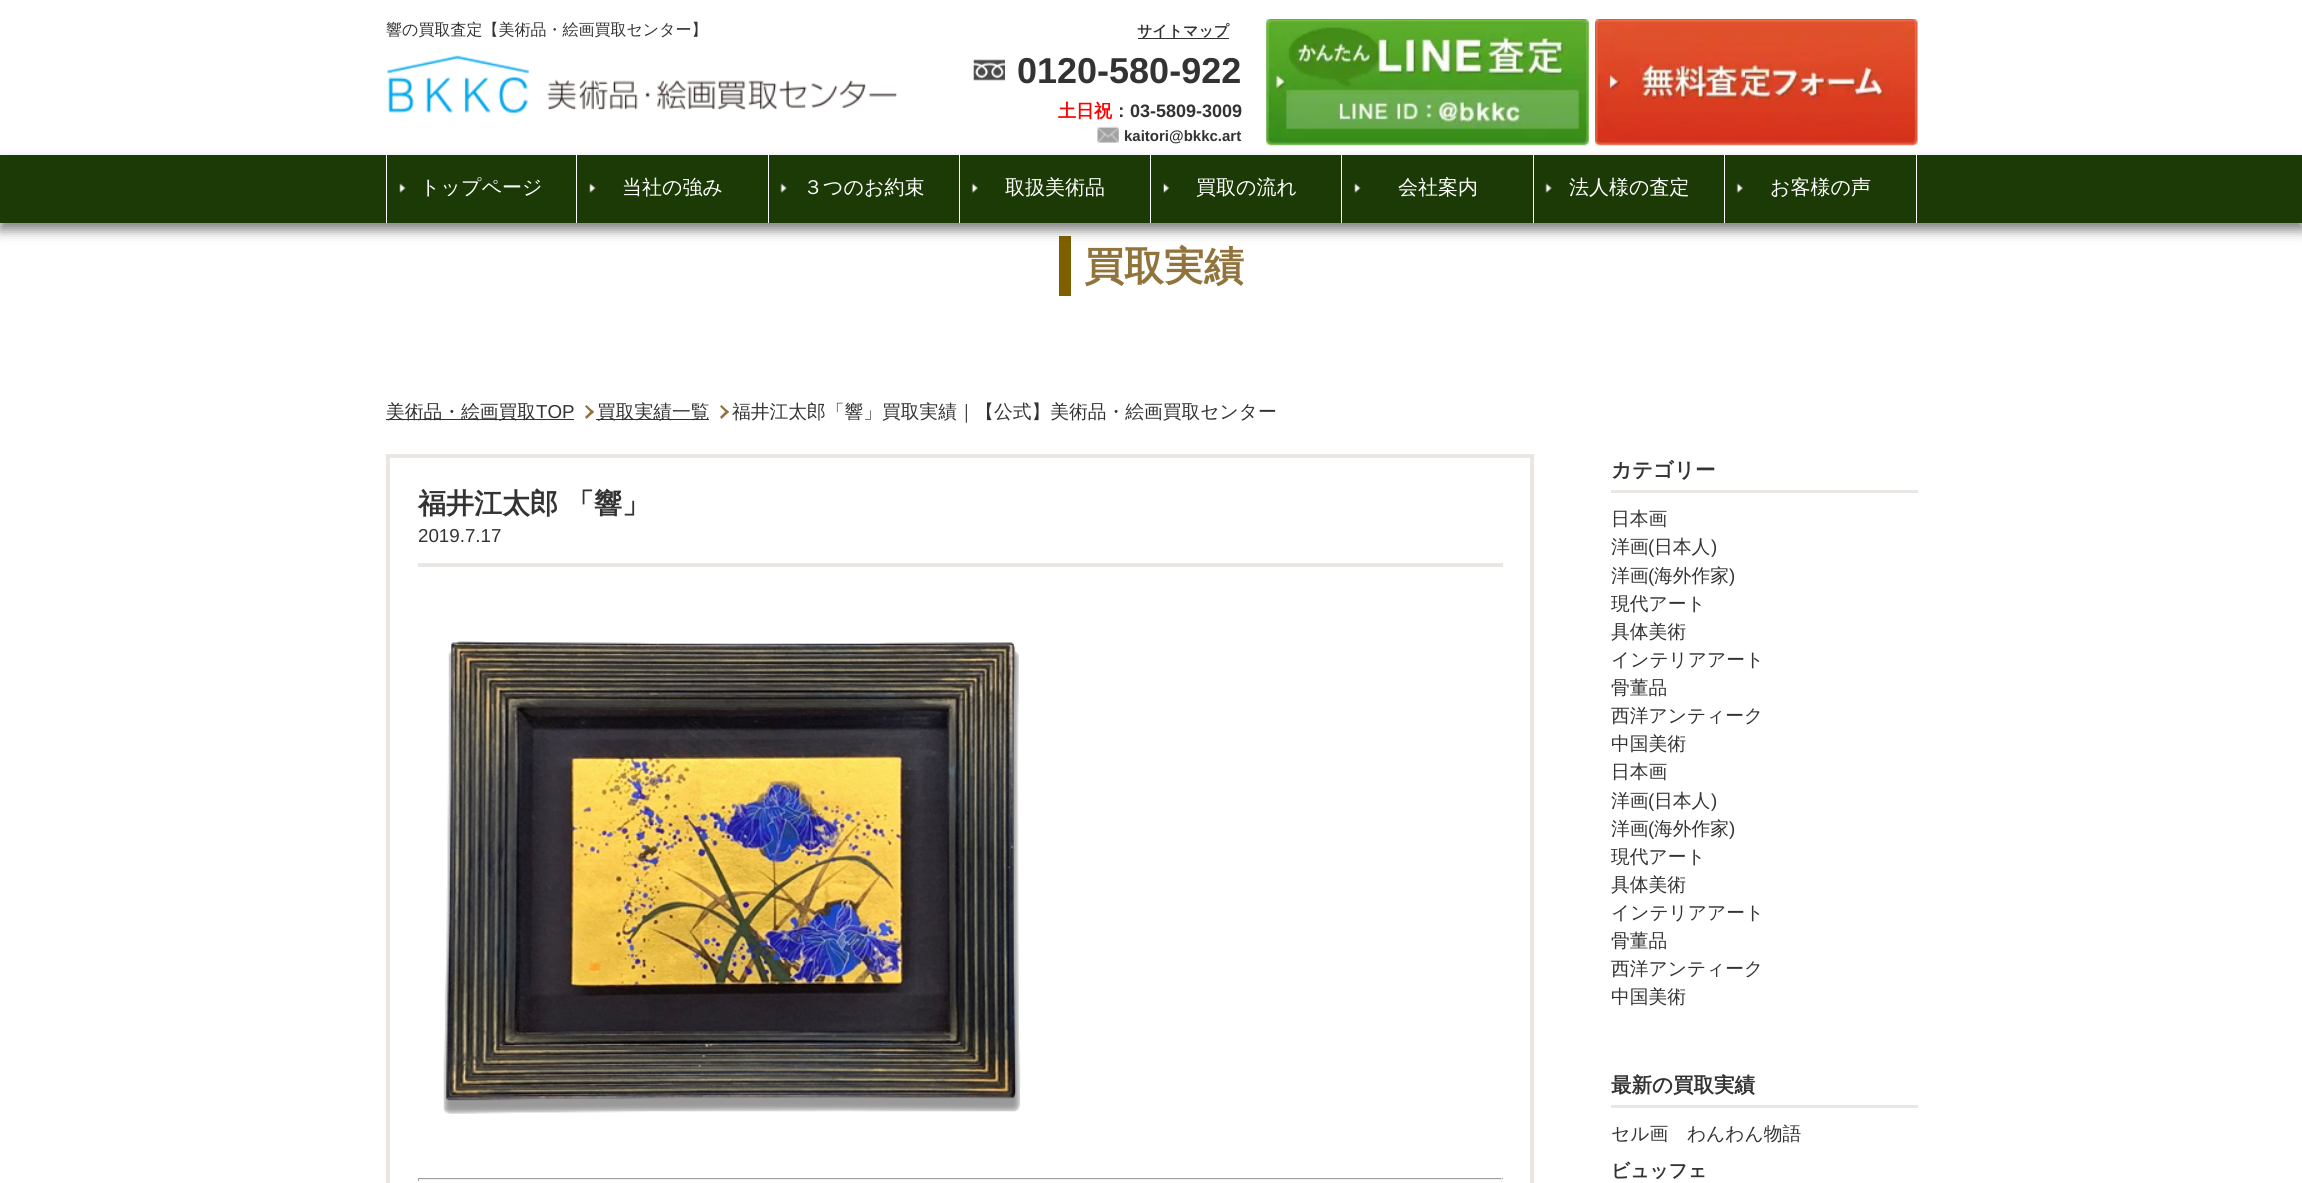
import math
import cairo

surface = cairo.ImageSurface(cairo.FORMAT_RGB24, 2302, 1183)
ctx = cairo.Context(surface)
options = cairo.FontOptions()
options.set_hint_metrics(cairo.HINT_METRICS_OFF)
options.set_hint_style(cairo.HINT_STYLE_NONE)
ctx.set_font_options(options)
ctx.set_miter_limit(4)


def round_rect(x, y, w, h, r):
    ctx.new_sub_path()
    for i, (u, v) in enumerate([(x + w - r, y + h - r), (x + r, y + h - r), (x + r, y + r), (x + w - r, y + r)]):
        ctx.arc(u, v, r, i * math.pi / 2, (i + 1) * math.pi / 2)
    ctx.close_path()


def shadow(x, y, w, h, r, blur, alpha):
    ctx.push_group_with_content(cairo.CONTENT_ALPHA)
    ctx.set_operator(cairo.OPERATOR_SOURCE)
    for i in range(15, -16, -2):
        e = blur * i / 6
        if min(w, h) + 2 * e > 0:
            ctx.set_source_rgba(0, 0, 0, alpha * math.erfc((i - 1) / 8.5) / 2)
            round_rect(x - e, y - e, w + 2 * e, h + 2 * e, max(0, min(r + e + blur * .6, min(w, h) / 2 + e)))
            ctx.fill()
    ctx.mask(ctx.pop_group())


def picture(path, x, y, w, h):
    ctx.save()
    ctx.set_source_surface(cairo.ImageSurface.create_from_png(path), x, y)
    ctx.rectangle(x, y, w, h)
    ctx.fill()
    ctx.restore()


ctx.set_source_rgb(1, 1, 1)
ctx.paint()
ctx.select_font_face("WenQuanYi Zen Hei Medium")
ctx.set_font_size(16)
ctx.set_source_rgb(0.2, 0.2, 0.2)
ctx.move_to(386, 35)
ctx.show_text("響の買取査定【美術品・絵画買取センター】")
ctx.rectangle(1138, 38, 91, 1)
ctx.fill()
ctx.select_font_face("WenQuanYi Zen Hei", cairo.FONT_SLANT_NORMAL, cairo.FONT_WEIGHT_BOLD)
ctx.set_font_size(15)
ctx.move_to(1137, 36)
ctx.show_text("サイトマップ")
picture("img1.png", 973, 59, 32, 22)
ctx.select_font_face("Liberation Sans", cairo.FONT_SLANT_NORMAL, cairo.FONT_WEIGHT_BOLD)
ctx.set_font_size(36)
ctx.move_to(1017, 83)
ctx.show_text("0120-580-922")
ctx.select_font_face("WenQuanYi Zen Hei", cairo.FONT_SLANT_NORMAL, cairo.FONT_WEIGHT_BOLD)
ctx.set_font_size(18)
ctx.set_source_rgb(1, 0, 0)
ctx.move_to(1058, 117)
ctx.show_text("土日祝")
ctx.set_source_rgb(0.2, 0.2, 0.2)
ctx.move_to(1112, 117)
ctx.show_text("：")
ctx.select_font_face("Liberation Sans", cairo.FONT_SLANT_NORMAL, cairo.FONT_WEIGHT_BOLD)
ctx.move_to(1130, 117)
ctx.show_text("03-5809-3009")
picture("img2.png", 1097, 126, 22, 17)
ctx.set_font_size(15)
ctx.move_to(1124, 141)
ctx.show_text("kaitori@bkkc.art")
picture("img3.png", 1266, 19, 323, 127)
picture("img4.png", 1595, 19, 323, 127)
picture("img5.png", 387, 55, 510, 58)
ctx.set_source_rgb(0.498, 0.376, 0)
ctx.rectangle(1059, 236, 12, 60)
ctx.fill()
ctx.set_source_rgb(0, 0, 0)
shadow(0, 163, 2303, 67, 0, 6, 0.5)
ctx.set_source_rgb(0.11, 0.227, 0.024)
ctx.rectangle(0, 155, 2302, 68)
ctx.fill()
ctx.set_source_rgb(1, 1, 1)
ctx.rectangle(576, 155, 1, 68)
ctx.fill()
ctx.rectangle(386, 155, 1, 68)
ctx.fill()
picture("img6.png", 399, 183, 7, 10)
ctx.select_font_face("WenQuanYi Zen Hei Medium")
ctx.set_font_size(20)
ctx.move_to(420, 194)
ctx.show_text("トップページ")
ctx.rectangle(768, 155, 1, 68)
ctx.fill()
picture("img6.png", 589, 183, 7, 10)
ctx.move_to(622, 194)
ctx.show_text("当社の強み")
ctx.rectangle(959, 155, 1, 68)
ctx.fill()
picture("img7.png", 780, 183, 7, 10)
ctx.move_to(803, 194)
ctx.show_text("３つのお約束")
ctx.rectangle(1150, 155, 1, 68)
ctx.fill()
picture("img8.png", 971, 183, 7, 10)
ctx.move_to(1005, 194)
ctx.show_text("取扱美術品")
ctx.rectangle(1341, 155, 1, 68)
ctx.fill()
picture("img9.png", 1163, 183, 7, 10)
ctx.move_to(1196, 194)
ctx.show_text("買取の流れ")
ctx.rectangle(1533, 155, 1, 68)
ctx.fill()
picture("img6.png", 1354, 183, 7, 10)
ctx.move_to(1398, 194)
ctx.show_text("会社案内")
ctx.rectangle(1724, 155, 1, 68)
ctx.fill()
picture("img7.png", 1545, 183, 7, 10)
ctx.move_to(1569, 194)
ctx.show_text("法人様の査定")
ctx.rectangle(1916, 155, 1, 68)
ctx.fill()
picture("img8.png", 1736, 183, 7, 10)
ctx.move_to(1770, 194)
ctx.show_text("お客様の声")
ctx.select_font_face("WenQuanYi Zen Hei", cairo.FONT_SLANT_NORMAL, cairo.FONT_WEIGHT_BOLD)
ctx.set_font_size(40)
ctx.set_source_rgb(0.565, 0.455, 0.235)
ctx.move_to(1084, 280)
ctx.show_text("買取実績")
ctx.set_source_rgb(0.2, 0.2, 0.2)
ctx.rectangle(386, 419, 188, 1)
ctx.fill()
ctx.select_font_face("WenQuanYi Zen Hei Medium")
ctx.set_font_size(18.75)
ctx.move_to(386, 418)
ctx.show_text("美術品・絵画買取")
ctx.select_font_face("Liberation Sans")
ctx.move_to(536, 418)
ctx.show_text("TOP")
ctx.set_source_rgb(0.565, 0.455, 0.235)
ctx.new_path()
ctx.move_to(586.5, 405)
ctx.line_to(594, 412)
ctx.line_to(592, 413.5)
ctx.line_to(585, 406.5)
ctx.close_path()
ctx.fill()
ctx.new_path()
ctx.move_to(592, 410)
ctx.line_to(594, 412)
ctx.line_to(586.5, 419)
ctx.line_to(585, 417)
ctx.close_path()
ctx.fill()
ctx.set_source_rgb(0.2, 0.2, 0.2)
ctx.rectangle(596, 419, 113, 1)
ctx.fill()
ctx.select_font_face("WenQuanYi Zen Hei Medium")
ctx.move_to(597, 418)
ctx.show_text("買取実績一覧")
ctx.set_source_rgb(0.565, 0.455, 0.235)
ctx.new_path()
ctx.move_to(721.5, 405)
ctx.line_to(729, 412)
ctx.line_to(727, 413.5)
ctx.line_to(720, 406.5)
ctx.close_path()
ctx.fill()
ctx.new_path()
ctx.move_to(727, 410)
ctx.line_to(729, 412)
ctx.line_to(721.5, 419)
ctx.line_to(720, 417)
ctx.close_path()
ctx.fill()
ctx.set_source_rgb(0.2, 0.2, 0.2)
ctx.move_to(732, 418)
ctx.show_text("福井江太郎「響」買取実績｜【公式】美術品・絵画買取センター")
ctx.rectangle(388, 456, 1144, 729)
ctx.set_source_rgb(0.914, 0.902, 0.89)
ctx.set_line_width(4)
ctx.stroke()
ctx.rectangle(418, 563, 1085, 4)
ctx.fill()
ctx.select_font_face("WenQuanYi Zen Hei", cairo.FONT_SLANT_NORMAL, cairo.FONT_WEIGHT_BOLD)
ctx.set_font_size(28)
ctx.set_source_rgb(0.2, 0.2, 0.2)
ctx.move_to(418, 513)
ctx.show_text("福井江太郎")
ctx.move_to(566, 513)
ctx.show_text("「響」")
ctx.select_font_face("Liberation Sans")
ctx.set_font_size(18.75)
ctx.move_to(418, 542)
ctx.show_text("2019.7.17")
picture("img10.png", 443, 641, 578, 473)
ctx.set_source_rgb(0.624, 0.624, 0.624)
ctx.rectangle(418, 1178, 1085, 1)
ctx.fill()
ctx.set_source_rgb(0.933, 0.933, 0.933)
ctx.rectangle(1501, 1178, 1, 3)
ctx.fill()
ctx.rectangle(418, 1179, 1085, 1)
ctx.fill()
ctx.set_source_rgb(0.624, 0.624, 0.624)
ctx.rectangle(418, 1178, 1, 3)
ctx.fill()
ctx.set_source_rgb(0.914, 0.902, 0.89)
ctx.rectangle(1611, 490, 307, 3)
ctx.fill()
ctx.select_font_face("WenQuanYi Zen Hei", cairo.FONT_SLANT_NORMAL, cairo.FONT_WEIGHT_BOLD)
ctx.set_font_size(20.5)
ctx.set_source_rgb(0.2, 0.2, 0.2)
ctx.move_to(1611, 477)
ctx.show_text("カテゴリー")
ctx.select_font_face("WenQuanYi Zen Hei Medium")
ctx.set_font_size(18.75)
ctx.move_to(1611, 525)
ctx.show_text("日本画")
ctx.move_to(1611, 553)
ctx.show_text("洋画")
ctx.select_font_face("Liberation Sans")
ctx.move_to(1648, 553)
ctx.show_text("(")
ctx.select_font_face("WenQuanYi Zen Hei Medium")
ctx.move_to(1654, 553)
ctx.show_text("日本人")
ctx.select_font_face("Liberation Sans")
ctx.move_to(1711, 553)
ctx.show_text(")")
ctx.select_font_face("WenQuanYi Zen Hei Medium")
ctx.move_to(1611, 582)
ctx.show_text("洋画")
ctx.select_font_face("Liberation Sans")
ctx.move_to(1648, 582)
ctx.show_text("(")
ctx.select_font_face("WenQuanYi Zen Hei Medium")
ctx.move_to(1654, 582)
ctx.show_text("海外作家")
ctx.select_font_face("Liberation Sans")
ctx.move_to(1729, 582)
ctx.show_text(")")
ctx.select_font_face("WenQuanYi Zen Hei Medium")
ctx.move_to(1611, 610)
ctx.show_text("現代アート")
ctx.move_to(1611, 638)
ctx.show_text("具体美術")
ctx.move_to(1611, 666)
ctx.show_text("インテリアアート")
ctx.move_to(1611, 694)
ctx.show_text("骨董品")
ctx.move_to(1611, 722)
ctx.show_text("西洋アンティーク")
ctx.move_to(1611, 750)
ctx.show_text("中国美術")
ctx.move_to(1611, 778)
ctx.show_text("日本画")
ctx.move_to(1611, 807)
ctx.show_text("洋画")
ctx.select_font_face("Liberation Sans")
ctx.move_to(1648, 807)
ctx.show_text("(")
ctx.select_font_face("WenQuanYi Zen Hei Medium")
ctx.move_to(1654, 807)
ctx.show_text("日本人")
ctx.select_font_face("Liberation Sans")
ctx.move_to(1711, 807)
ctx.show_text(")")
ctx.select_font_face("WenQuanYi Zen Hei Medium")
ctx.move_to(1611, 835)
ctx.show_text("洋画")
ctx.select_font_face("Liberation Sans")
ctx.move_to(1648, 835)
ctx.show_text("(")
ctx.select_font_face("WenQuanYi Zen Hei Medium")
ctx.move_to(1654, 835)
ctx.show_text("海外作家")
ctx.select_font_face("Liberation Sans")
ctx.move_to(1729, 835)
ctx.show_text(")")
ctx.select_font_face("WenQuanYi Zen Hei Medium")
ctx.move_to(1611, 863)
ctx.show_text("現代アート")
ctx.move_to(1611, 891)
ctx.show_text("具体美術")
ctx.move_to(1611, 919)
ctx.show_text("インテリアアート")
ctx.move_to(1611, 947)
ctx.show_text("骨董品")
ctx.move_to(1611, 975)
ctx.show_text("西洋アンティーク")
ctx.move_to(1611, 1003)
ctx.show_text("中国美術")
ctx.set_source_rgb(0.914, 0.902, 0.89)
ctx.rectangle(1611, 1105, 307, 3)
ctx.fill()
ctx.select_font_face("WenQuanYi Zen Hei", cairo.FONT_SLANT_NORMAL, cairo.FONT_WEIGHT_BOLD)
ctx.set_font_size(20.5)
ctx.set_source_rgb(0.2, 0.2, 0.2)
ctx.move_to(1611, 1092)
ctx.show_text("最新の買取実績")
ctx.select_font_face("WenQuanYi Zen Hei Medium")
ctx.set_font_size(18.75)
ctx.move_to(1611, 1140)
ctx.show_text("セル画　わんわん物語")
ctx.select_font_face("WenQuanYi Zen Hei", cairo.FONT_SLANT_NORMAL, cairo.FONT_WEIGHT_BOLD)
ctx.move_to(1611, 1177)
ctx.show_text("ビュッフェ")
surface.write_to_png("page.png")
